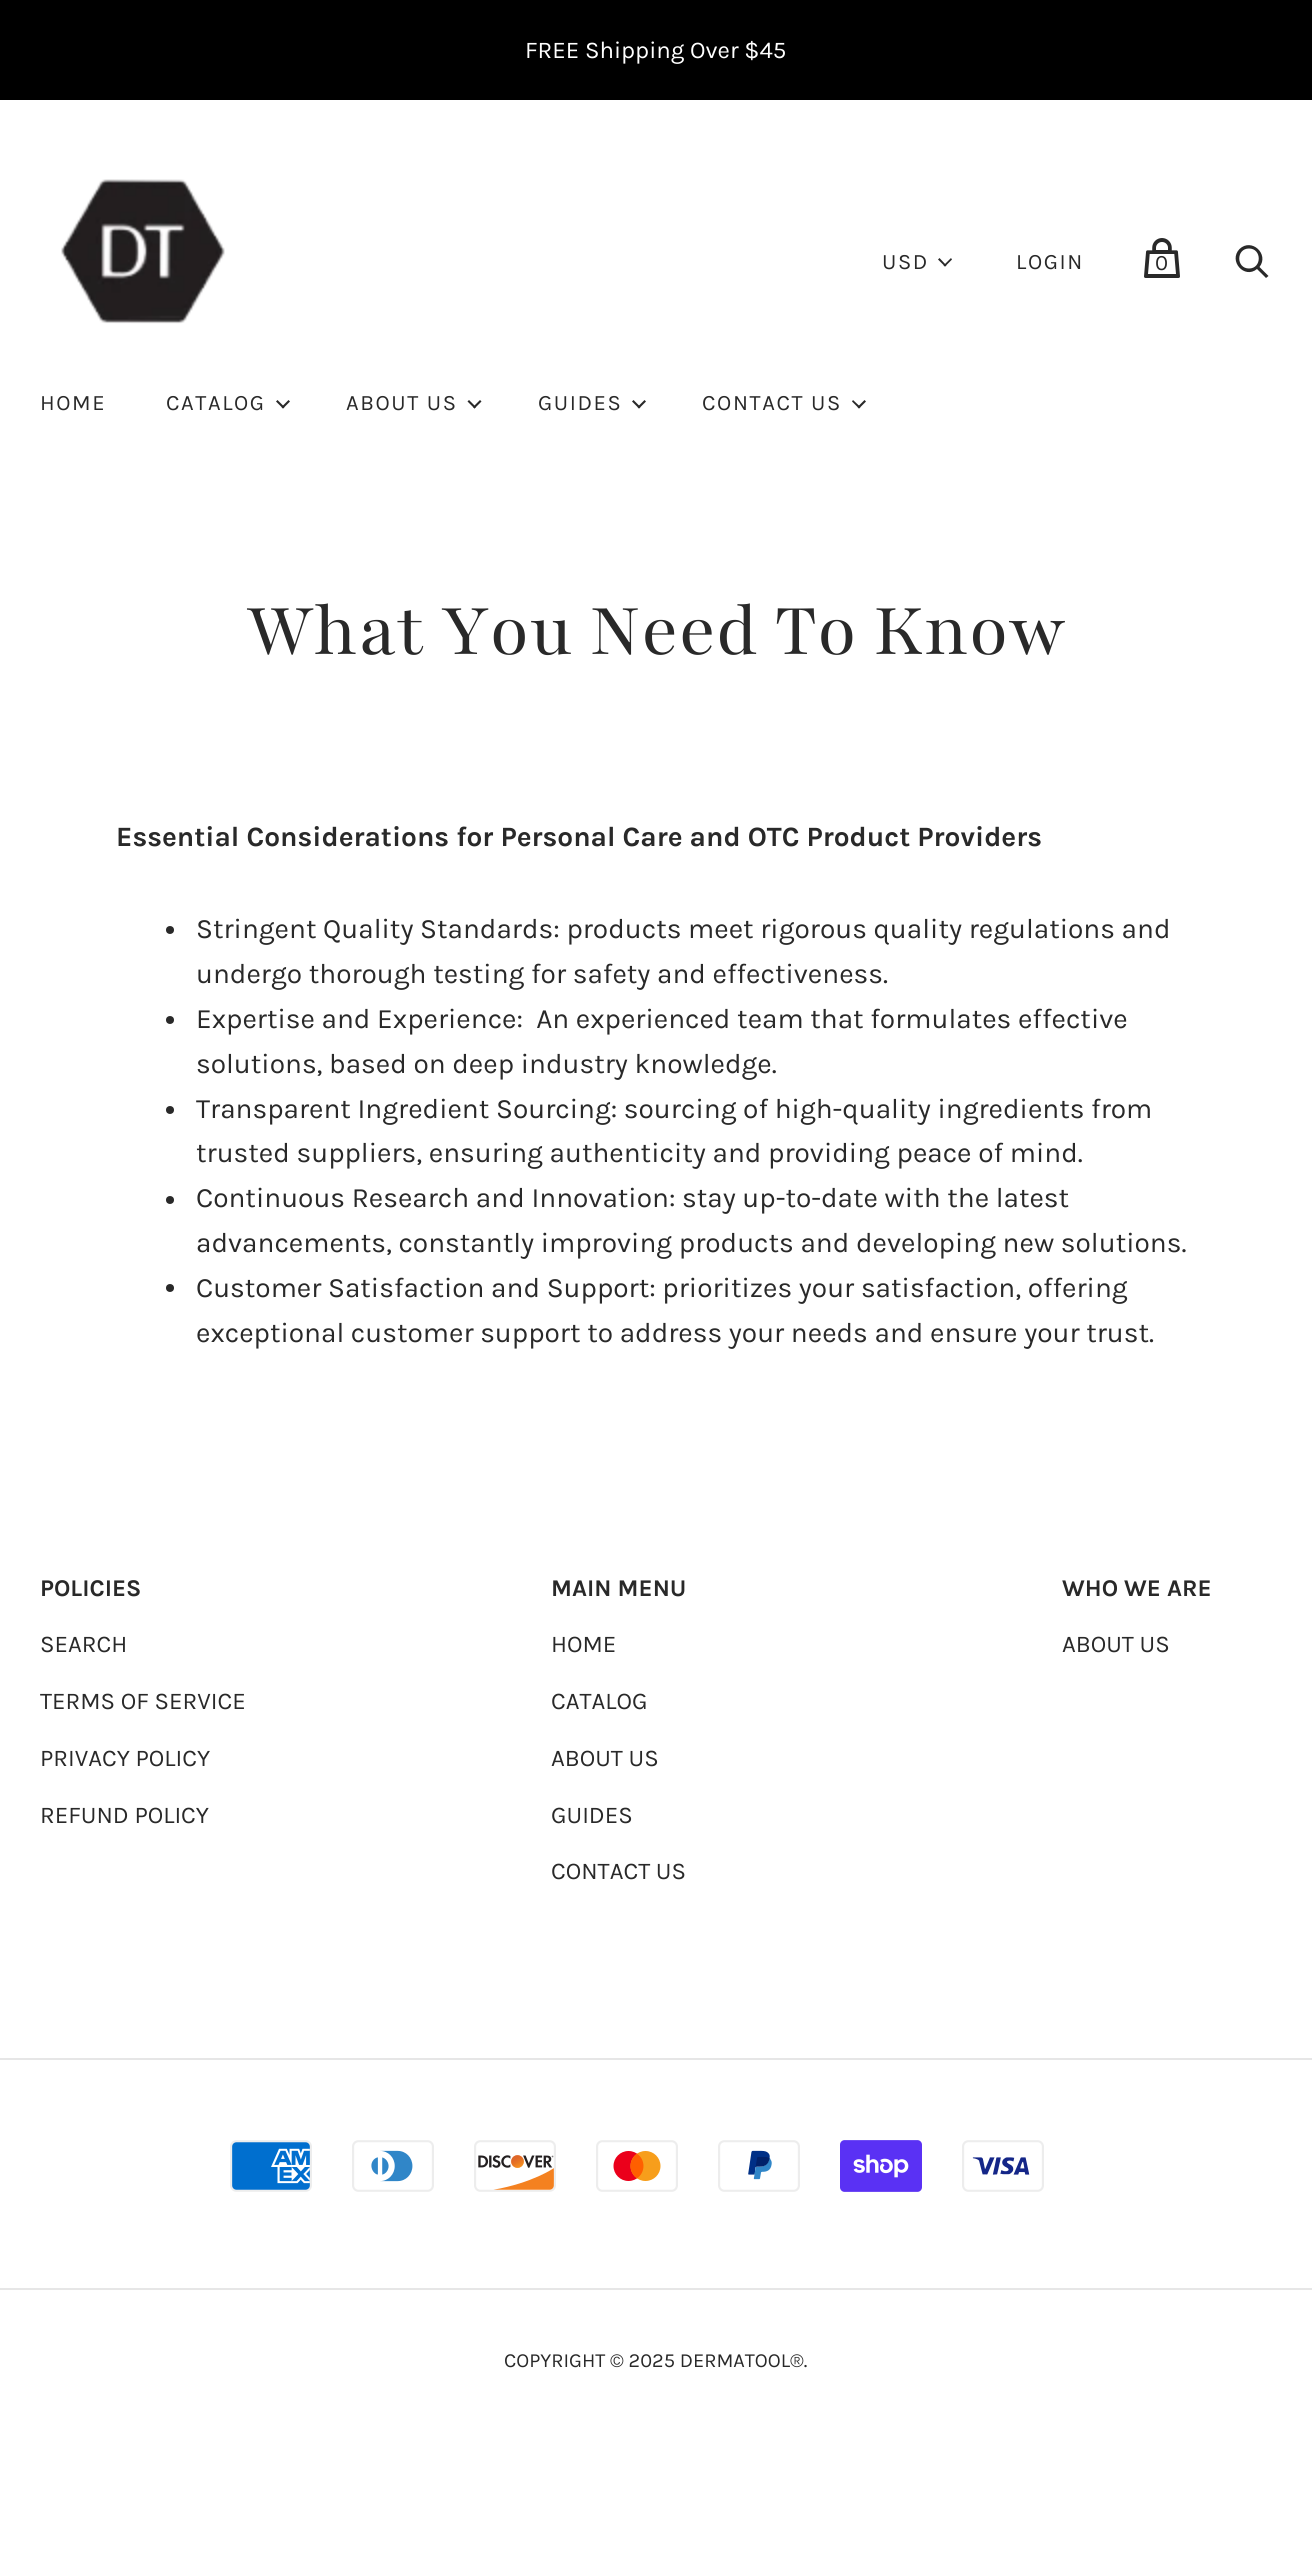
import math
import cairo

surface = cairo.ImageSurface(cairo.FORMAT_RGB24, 1312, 2558)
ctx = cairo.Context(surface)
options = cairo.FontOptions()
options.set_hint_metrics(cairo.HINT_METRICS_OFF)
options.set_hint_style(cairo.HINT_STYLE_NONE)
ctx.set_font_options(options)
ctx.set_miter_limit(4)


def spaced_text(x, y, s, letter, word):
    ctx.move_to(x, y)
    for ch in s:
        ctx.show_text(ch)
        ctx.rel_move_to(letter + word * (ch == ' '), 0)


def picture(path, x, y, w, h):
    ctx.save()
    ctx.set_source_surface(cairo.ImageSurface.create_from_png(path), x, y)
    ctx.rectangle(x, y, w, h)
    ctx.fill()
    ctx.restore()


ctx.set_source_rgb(1, 1, 1)
ctx.paint()
ctx.set_source_rgb(0, 0, 0)
ctx.rectangle(0, 0, 1312, 100)
ctx.fill()
ctx.select_font_face("Karla")
ctx.set_font_size(24)
ctx.set_source_rgb(1, 1, 1)
ctx.move_to(525, 58)
ctx.show_text("FREE Shipping Over $45")
picture("img1.png", 61, 179, 164, 145)
ctx.set_font_size(22)
ctx.set_source_rgb(0.161, 0.161, 0.161)
spaced_text(882, 269, "USD", 1.6, 0)
ctx.new_path()
ctx.move_to(943.5, 265.5)
ctx.line_to(951, 258)
ctx.line_to(952, 259.5)
ctx.line_to(945, 266.5)
ctx.close_path()
ctx.fill()
ctx.new_path()
ctx.move_to(938, 259.5)
ctx.line_to(939.5, 258)
ctx.line_to(946.5, 265.5)
ctx.line_to(945, 266.5)
ctx.close_path()
ctx.fill()
spaced_text(1016, 269, "LOGIN", 1.6, 0)
picture("img2.png", 1144, 238, 36, 40)
ctx.move_to(1155, 270)
ctx.show_text("0")
ctx.new_path()
ctx.move_to(1268.5, 276)
ctx.line_to(1259.5, 267)
ctx.curve_to(1269.5, 254, 1251.5, 237.5, 1239.5, 249)
ctx.curve_to(1228, 261, 1244.5, 279.5, 1257, 269)
ctx.line_to(1266, 278)
ctx.close_path()
ctx.move_to(1249, 268.5)
ctx.curve_to(1236, 268.5, 1236, 248.5, 1249, 248.5)
ctx.curve_to(1262, 248.5, 1262, 268.5, 1249, 268.5)
ctx.close_path()
ctx.fill()
spaced_text(40, 410, "HOME", 1.6, 0)
spaced_text(166, 410, "CATALOG", 1.6, 0)
ctx.new_path()
ctx.move_to(281.5, 407)
ctx.line_to(288.5, 400)
ctx.line_to(290, 401.5)
ctx.line_to(283, 408.5)
ctx.close_path()
ctx.fill()
ctx.new_path()
ctx.move_to(276, 401.5)
ctx.line_to(277.5, 400)
ctx.line_to(284.5, 407)
ctx.line_to(283, 408.5)
ctx.close_path()
ctx.fill()
spaced_text(346, 410, "ABOUT US", 1.6, 0)
ctx.new_path()
ctx.move_to(473, 407)
ctx.line_to(480, 400)
ctx.line_to(481.5, 401.5)
ctx.line_to(474.5, 408.5)
ctx.close_path()
ctx.fill()
ctx.new_path()
ctx.move_to(467.5, 401.5)
ctx.line_to(469, 400)
ctx.line_to(476, 407)
ctx.line_to(474.5, 408.5)
ctx.close_path()
ctx.fill()
spaced_text(538, 410, "GUIDES", 1.6, 0)
ctx.new_path()
ctx.move_to(637.5, 407)
ctx.line_to(644.5, 400)
ctx.line_to(646, 401.5)
ctx.line_to(639, 408.5)
ctx.close_path()
ctx.fill()
ctx.new_path()
ctx.move_to(632, 401.5)
ctx.line_to(633.5, 400)
ctx.line_to(640.5, 407)
ctx.line_to(639, 408.5)
ctx.close_path()
ctx.fill()
spaced_text(702, 410, "CONTACT US", 1.6, 0)
ctx.new_path()
ctx.move_to(857.5, 407)
ctx.line_to(864.5, 400)
ctx.line_to(866, 401.5)
ctx.line_to(859, 408.5)
ctx.close_path()
ctx.fill()
ctx.new_path()
ctx.move_to(852, 401.5)
ctx.line_to(853, 400)
ctx.line_to(860.5, 407)
ctx.line_to(859, 408.5)
ctx.close_path()
ctx.fill()
ctx.select_font_face("Playfair")
ctx.set_font_size(80)
ctx.move_to(246, 654)
ctx.show_text("What You Need To Know")
ctx.select_font_face("Karla", cairo.FONT_SLANT_NORMAL, cairo.FONT_WEIGHT_BOLD)
ctx.set_font_size(28)
ctx.move_to(116, 846)
ctx.show_text("Essential Considerations for Personal Care and OTC Product Providers")
ctx.new_path()
ctx.arc(170, 930, 4, 0, 2 * math.pi)
ctx.fill()
ctx.select_font_face("Karla")
ctx.move_to(196, 938)
ctx.show_text("Stringent Quality Standards: products meet rigorous quality regulations and")
ctx.move_to(196, 983)
ctx.show_text("undergo thorough testing for safety and effectiveness.")
ctx.new_path()
ctx.arc(170, 1020, 4, 0, 2 * math.pi)
ctx.fill()
ctx.move_to(196, 1028)
ctx.show_text("Expertise and Experience:  An experienced team that formulates effective")
ctx.move_to(196, 1073)
ctx.show_text("solutions, based on deep industry knowledge.")
ctx.new_path()
ctx.arc(170, 1110, 4, 0, 2 * math.pi)
ctx.fill()
ctx.move_to(196, 1118)
ctx.show_text("Transparent Ingredient Sourcing: sourcing of high-quality ingredients from")
ctx.move_to(196, 1162)
ctx.show_text("trusted suppliers, ensuring authenticity and providing peace of mind.")
ctx.new_path()
ctx.arc(170, 1200, 4, 0, 2 * math.pi)
ctx.fill()
ctx.move_to(196, 1207)
ctx.show_text("Continuous Research and Innovation: stay up-to-date with the latest")
ctx.move_to(196, 1252)
ctx.show_text("advancements, constantly improving products and developing new solutions.")
ctx.new_path()
ctx.arc(170, 1288, 4, 0, 2 * math.pi)
ctx.fill()
ctx.move_to(196, 1297)
ctx.show_text("Customer Satisfaction and Support: prioritizes your satisfaction, offering")
ctx.move_to(196, 1342)
ctx.show_text("exceptional customer support to address your needs and ensure your trust.")
ctx.select_font_face("Karla", cairo.FONT_SLANT_NORMAL, cairo.FONT_WEIGHT_BOLD)
ctx.set_font_size(24)
ctx.move_to(40, 1596)
ctx.show_text("POLICIES")
ctx.select_font_face("Karla")
ctx.move_to(40, 1652)
ctx.show_text("SEARCH")
ctx.move_to(40, 1709)
ctx.show_text("TERMS OF SERVICE")
ctx.move_to(40, 1766)
ctx.show_text("PRIVACY POLICY")
ctx.move_to(40, 1823)
ctx.show_text("REFUND POLICY")
ctx.select_font_face("Karla", cairo.FONT_SLANT_NORMAL, cairo.FONT_WEIGHT_BOLD)
ctx.move_to(551, 1596)
ctx.show_text("MAIN MENU")
ctx.select_font_face("Karla")
ctx.move_to(551, 1652)
ctx.show_text("HOME")
ctx.move_to(551, 1709)
ctx.show_text("CATALOG")
ctx.move_to(551, 1766)
ctx.show_text("ABOUT US")
ctx.move_to(551, 1823)
ctx.show_text("GUIDES")
ctx.move_to(551, 1879)
ctx.show_text("CONTACT US")
ctx.select_font_face("Karla", cairo.FONT_SLANT_NORMAL, cairo.FONT_WEIGHT_BOLD)
ctx.move_to(1062, 1596)
ctx.show_text("WHO WE ARE")
ctx.select_font_face("Karla")
ctx.move_to(1062, 1652)
ctx.show_text("ABOUT US")
ctx.set_source_rgb(0.902, 0.902, 0.902)
ctx.rectangle(0, 2058, 1312, 2)
ctx.fill()
picture("img3.png", 230, 2140, 82, 52)
picture("img4.png", 352, 2140, 82, 52)
picture("img5.png", 474, 2140, 82, 52)
picture("img6.png", 596, 2140, 82, 52)
picture("img7.png", 718, 2140, 82, 52)
picture("img8.png", 840, 2140, 82, 52)
picture("img9.png", 962, 2140, 82, 52)
ctx.rectangle(0, 2288, 1312, 2)
ctx.fill()
ctx.set_font_size(20)
ctx.set_source_rgb(0.161, 0.161, 0.161)
ctx.move_to(504, 2367)
ctx.show_text("COPYRIGHT © 2025 DERMATOOL®.")
surface.write_to_png("page.png")
